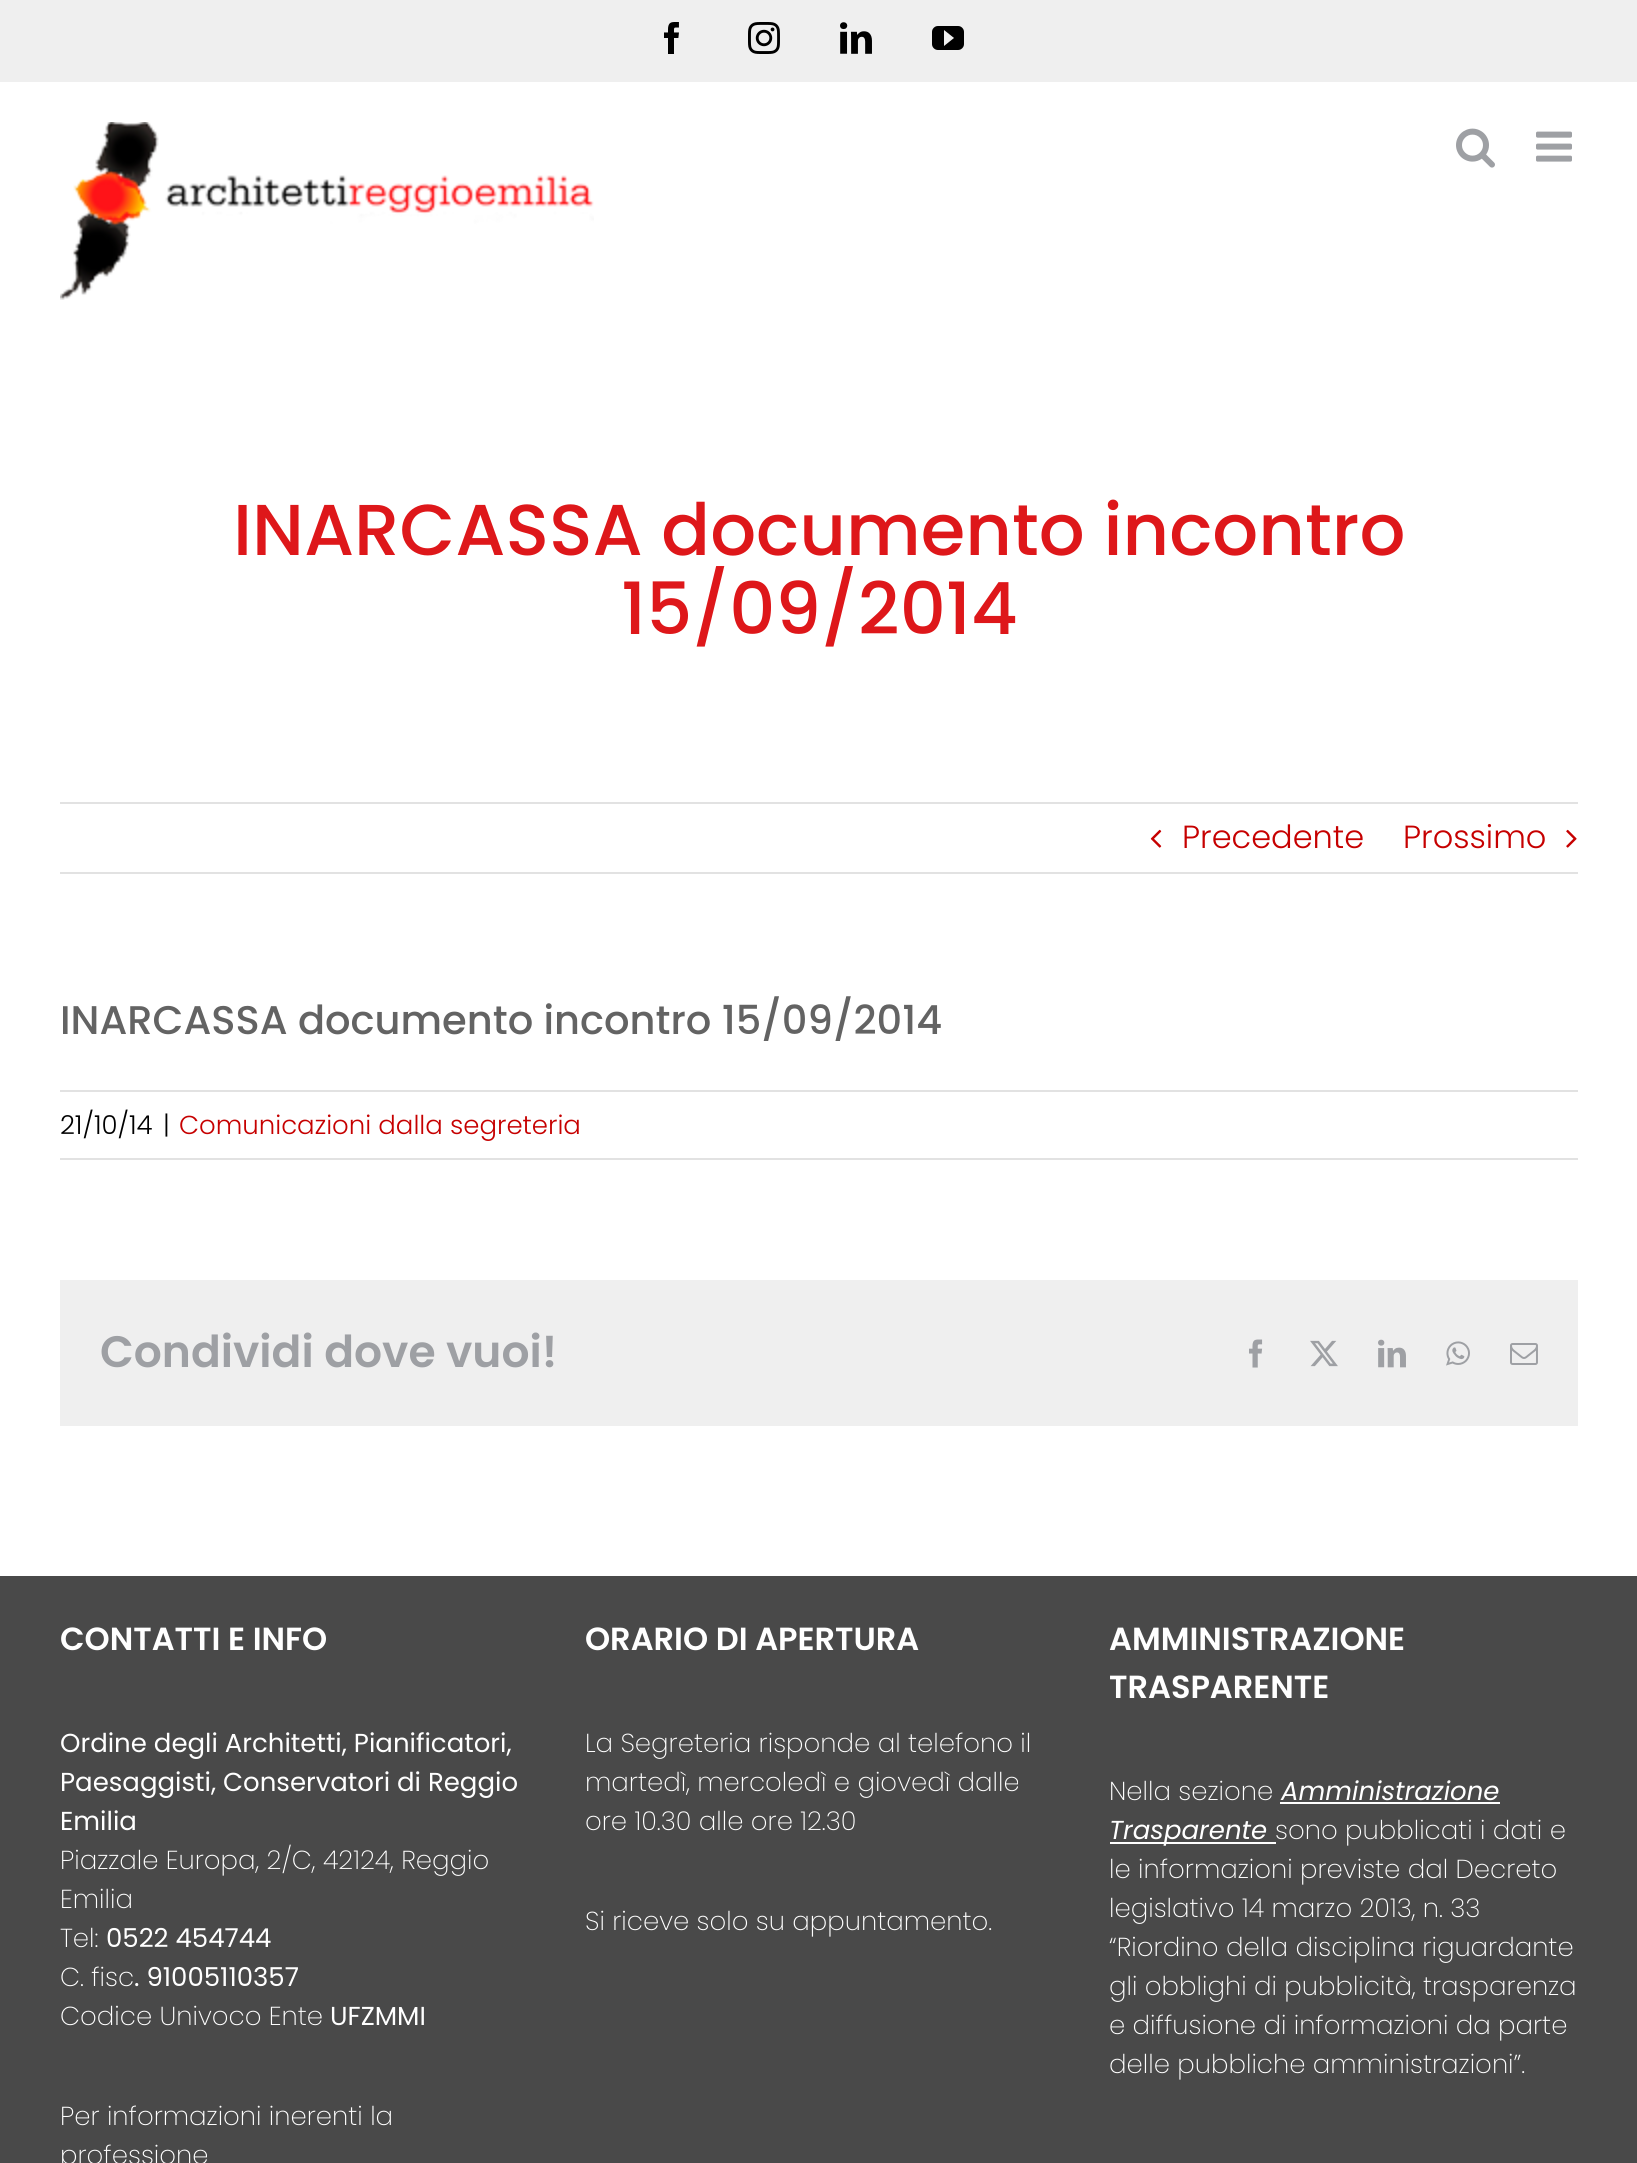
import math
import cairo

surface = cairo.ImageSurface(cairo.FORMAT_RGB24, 1637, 2163)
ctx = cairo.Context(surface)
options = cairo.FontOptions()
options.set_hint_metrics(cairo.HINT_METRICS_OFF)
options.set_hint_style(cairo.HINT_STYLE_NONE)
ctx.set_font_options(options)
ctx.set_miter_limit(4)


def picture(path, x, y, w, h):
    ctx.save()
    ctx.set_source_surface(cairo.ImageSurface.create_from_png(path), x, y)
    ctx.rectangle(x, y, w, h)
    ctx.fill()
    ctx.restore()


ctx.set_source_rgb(1, 1, 1)
ctx.paint()
ctx.set_source_rgb(0.937, 0.937, 0.937)
ctx.rectangle(0, 0, 1637, 82)
ctx.fill()
picture("img1.png", 664, 22, 15, 32)
picture("img2.png", 748, 22, 32, 32)
picture("img3.png", 840, 22, 32, 32)
picture("img4.png", 932, 26, 32, 24)
picture("img5.png", 60, 122, 534, 178)
picture("img6.png", 1456, 128, 39, 40)
picture("img7.png", 1536, 131, 36, 31)
ctx.select_font_face("Poppins Medium")
ctx.set_font_size(72)
ctx.set_source_rgb(0.871, 0.09, 0.102)
ctx.move_to(233, 555)
ctx.show_text("INARCASSA documento incontro")
ctx.move_to(621, 634)
ctx.show_text("15/09/2014")
ctx.set_source_rgb(0.886, 0.886, 0.886)
ctx.rectangle(60, 802, 1518, 2)
ctx.fill()
ctx.rectangle(60, 872, 1518, 2)
ctx.fill()
picture("img8.png", 1150, 829, 12, 19)
ctx.select_font_face("Poppins Light")
ctx.set_font_size(32)
ctx.set_source_rgb(0.776, 0, 0)
ctx.move_to(1182, 848)
ctx.show_text("Precedente")
ctx.move_to(1403, 848)
ctx.show_text("Prossimo")
picture("img9.png", 1566, 829, 11, 19)
ctx.select_font_face("Poppins Medium")
ctx.set_font_size(40)
ctx.set_source_rgb(0.388, 0.388, 0.388)
ctx.move_to(60, 1034)
ctx.show_text("INARCASSA documento incontro 15/09/2014")
ctx.set_source_rgb(0.886, 0.886, 0.886)
ctx.rectangle(60, 1090, 1518, 2)
ctx.fill()
ctx.rectangle(60, 1158, 1518, 2)
ctx.fill()
ctx.select_font_face("Poppins Light")
ctx.set_font_size(26)
ctx.set_source_rgb(0, 0, 0)
ctx.move_to(60, 1134)
ctx.show_text("21/10/14")
ctx.move_to(163, 1134)
ctx.show_text("|")
ctx.set_source_rgb(0.776, 0, 0)
ctx.move_to(179, 1134)
ctx.show_text("Comunicazioni dalla segreteria")
ctx.set_source_rgb(0.937, 0.937, 0.937)
ctx.rectangle(60, 1280, 1518, 146)
ctx.fill()
ctx.select_font_face("Poppins SemiBold")
ctx.set_font_size(44)
ctx.set_source_rgb(0.62, 0.627, 0.643)
ctx.move_to(100, 1367)
ctx.show_text("Condividi dove vuoi!")
picture("img10.png", 1249, 1339, 14, 29)
picture("img11.png", 1310, 1340, 28, 27)
picture("img12.png", 1378, 1339, 28, 29)
picture("img13.png", 1446, 1341, 24, 25)
picture("img14.png", 1510, 1343, 28, 22)
ctx.set_source_rgb(0.286, 0.286, 0.286)
ctx.rectangle(0, 1576, 1637, 587)
ctx.fill()
ctx.set_font_size(32)
ctx.set_source_rgb(1, 1, 1)
ctx.move_to(60, 1650)
ctx.show_text("CONTATTI E INFO")
ctx.select_font_face("Poppins")
ctx.set_font_size(26)
ctx.move_to(60, 1752)
ctx.show_text("Ordine degli Architetti, Pianificatori,")
ctx.move_to(60, 1791)
ctx.show_text("Paesaggisti, Conservatori di Reggio")
ctx.move_to(60, 1830)
ctx.show_text("Emilia")
ctx.select_font_face("Poppins ExtraLight")
ctx.move_to(60, 1869)
ctx.show_text("Piazzale Europa, 2/C, 42124, Reggio")
ctx.move_to(60, 1908)
ctx.show_text("Emilia")
ctx.move_to(60, 1947)
ctx.show_text("Tel:")
ctx.select_font_face("Poppins")
ctx.move_to(106, 1947)
ctx.show_text("0522 454744")
ctx.select_font_face("Poppins ExtraLight")
ctx.move_to(60, 1986)
ctx.show_text("C. fisc")
ctx.select_font_face("Poppins")
ctx.move_to(134, 1986)
ctx.show_text(". 91005110357")
ctx.select_font_face("Poppins ExtraLight")
ctx.move_to(60, 2025)
ctx.show_text("Codice Univoco Ente")
ctx.select_font_face("Poppins")
ctx.move_to(330, 2025)
ctx.show_text("UFZMMI")
ctx.select_font_face("Poppins ExtraLight")
ctx.move_to(60, 2125)
ctx.show_text("Per informazioni inerenti la")
ctx.move_to(60, 2164)
ctx.show_text("professione")
ctx.select_font_face("Poppins SemiBold")
ctx.set_font_size(32)
ctx.move_to(585, 1650)
ctx.show_text("ORARIO DI APERTURA")
ctx.select_font_face("Poppins ExtraLight")
ctx.set_font_size(26)
ctx.move_to(585, 1752)
ctx.show_text("La Segreteria risponde al telefono il")
ctx.move_to(585, 1791)
ctx.show_text("martedì, mercoledì e giovedì dalle")
ctx.move_to(585, 1830)
ctx.show_text("ore 10.30 alle ore 12.30")
ctx.move_to(585, 1930)
ctx.show_text("Si riceve solo su appuntamento.")
ctx.select_font_face("Poppins SemiBold")
ctx.set_font_size(32)
ctx.move_to(1109, 1650)
ctx.show_text("AMMINISTRAZIONE")
ctx.move_to(1109, 1698)
ctx.show_text("TRASPARENTE")
ctx.select_font_face("Poppins ExtraLight")
ctx.set_font_size(26)
ctx.move_to(1109, 1800)
ctx.show_text("Nella sezione")
ctx.select_font_face("Poppins", cairo.FONT_SLANT_ITALIC)
ctx.move_to(1281, 1800)
ctx.show_text("Amministrazione")
ctx.rectangle(1280, 1802, 220, 2)
ctx.fill()
ctx.rectangle(1110, 1842, 166, 2)
ctx.fill()
ctx.move_to(1109, 1839)
ctx.show_text("Trasparente")
ctx.select_font_face("Poppins ExtraLight")
ctx.move_to(1275, 1839)
ctx.show_text("sono pubblicati i dati e")
ctx.move_to(1109, 1878)
ctx.show_text("le informazioni previste dal Decreto")
ctx.move_to(1109, 1917)
ctx.show_text("legislativo 14 marzo 2013, n. 33")
ctx.move_to(1109, 1956)
ctx.show_text("“Riordino della disciplina riguardante")
ctx.move_to(1109, 1995)
ctx.show_text("gli obblighi di pubblicità, trasparenza")
ctx.move_to(1109, 2034)
ctx.show_text("e diffusione di informazioni da parte")
ctx.move_to(1109, 2073)
ctx.show_text("delle pubbliche amministrazioni”.")
surface.write_to_png("page.png")
